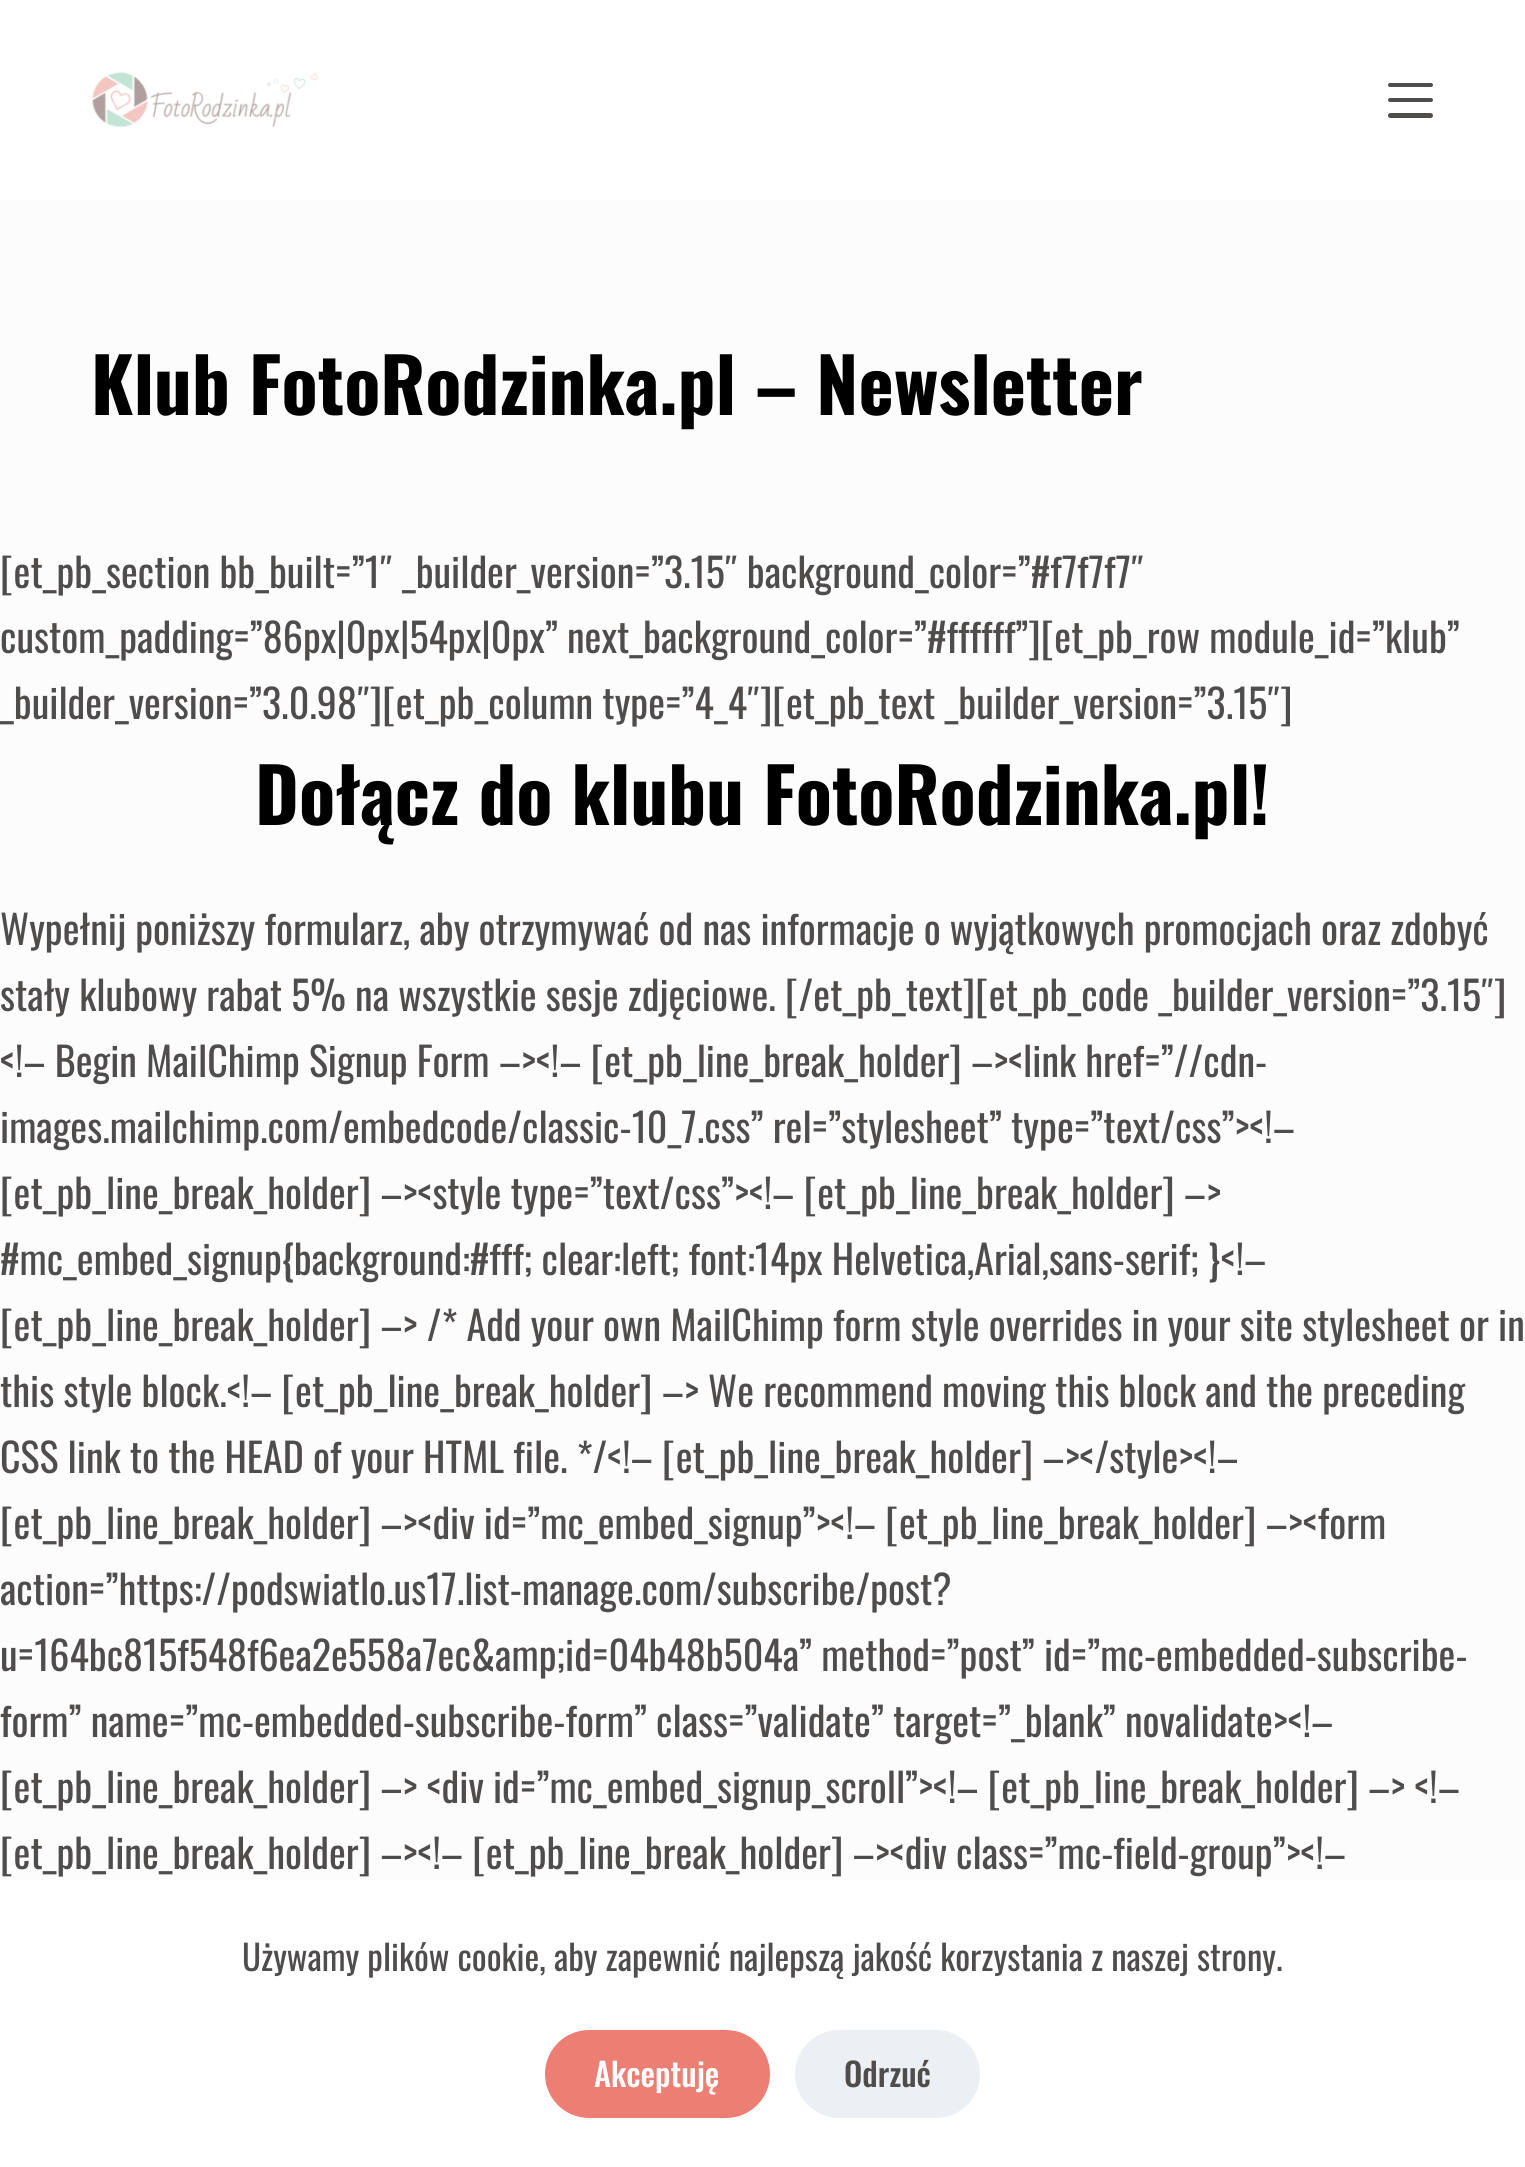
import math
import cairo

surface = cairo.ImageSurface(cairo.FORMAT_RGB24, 1525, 2167)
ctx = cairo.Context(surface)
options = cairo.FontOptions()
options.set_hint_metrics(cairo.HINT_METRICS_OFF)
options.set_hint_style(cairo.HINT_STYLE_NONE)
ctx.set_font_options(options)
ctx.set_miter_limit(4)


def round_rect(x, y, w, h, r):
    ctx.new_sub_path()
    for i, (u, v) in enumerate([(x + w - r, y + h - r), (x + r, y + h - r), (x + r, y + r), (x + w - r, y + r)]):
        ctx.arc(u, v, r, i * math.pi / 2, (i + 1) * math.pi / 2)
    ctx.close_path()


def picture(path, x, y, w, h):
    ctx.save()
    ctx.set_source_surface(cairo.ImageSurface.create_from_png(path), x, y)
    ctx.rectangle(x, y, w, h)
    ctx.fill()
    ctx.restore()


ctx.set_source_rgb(0.988, 0.988, 0.988)
ctx.paint()
ctx.set_source_rgb(1, 1, 1)
ctx.rectangle(0, 0, 1525, 200)
ctx.fill()
picture("img1.png", 92, 72, 226, 56)
ctx.set_source_rgb(0.31, 0.298, 0.298)
round_rect(1388, 83, 45, 4, 2)
ctx.fill()
round_rect(1388, 98, 45, 4, 2)
ctx.fill()
round_rect(1388, 113, 45, 5, 2.5)
ctx.fill()
ctx.select_font_face("Oswald", cairo.FONT_SLANT_NORMAL, cairo.FONT_WEIGHT_BOLD)
ctx.set_font_size(75)
ctx.set_source_rgb(0, 0, 0)
ctx.move_to(91, 415)
ctx.show_text("Klub FotoRodzinka.pl – Newsletter")
ctx.select_font_face("Oswald")
ctx.set_font_size(40)
ctx.set_source_rgb(0.31, 0.298, 0.298)
ctx.move_to(0, 588)
ctx.show_text("[et_pb_section bb_built=”1″ _builder_version=”3.15″ background_color=”#f7f7f7″")
ctx.move_to(0, 653)
ctx.show_text("custom_padding=”86px|0px|54px|0px” next_background_color=”#ffffff”][et_pb_row module_id=”klub”")
ctx.move_to(0, 719)
ctx.show_text("_builder_version=”3.0.98″][et_pb_column type=”4_4″][et_pb_text _builder_version=”3.15″]")
ctx.select_font_face("Oswald", cairo.FONT_SLANT_NORMAL, cairo.FONT_WEIGHT_BOLD)
ctx.set_font_size(75)
ctx.set_source_rgb(0, 0, 0)
ctx.move_to(255, 825)
ctx.show_text("Dołącz do klubu FotoRodzinka.pl!")
ctx.select_font_face("Oswald")
ctx.set_font_size(40)
ctx.set_source_rgb(0.31, 0.298, 0.298)
ctx.move_to(0, 945)
ctx.show_text("Wypełnij poniższy formularz, aby otrzymywać od nas informacje o wyjątkowych promocjach oraz zdobyć")
ctx.move_to(0, 1011)
ctx.show_text("stały klubowy rabat 5% na wszystkie sesje zdjęciowe. [/et_pb_text][et_pb_code _builder_version=”3.15″]")
ctx.move_to(0, 1077)
ctx.show_text("<!– Begin MailChimp Signup Form –><!– [et_pb_line_break_holder] –><link href=”//cdn-")
ctx.move_to(0, 1143)
ctx.show_text("images.mailchimp.com/embedcode/classic-10_7.css” rel=”stylesheet” type=”text/css”><!–")
ctx.move_to(0, 1209)
ctx.show_text("[et_pb_line_break_holder] –><style type=”text/css”><!– [et_pb_line_break_holder] –>")
ctx.move_to(0, 1275)
ctx.show_text("#mc_embed_signup{background:#fff; clear:left; font:14px Helvetica,Arial,sans-serif; }<!–")
ctx.move_to(0, 1341)
ctx.show_text("[et_pb_line_break_holder] –> /* Add your own MailChimp form style overrides in your site stylesheet or in")
ctx.move_to(0, 1407)
ctx.show_text("this style block.<!– [et_pb_line_break_holder] –> We recommend moving this block and the preceding")
ctx.move_to(0, 1473)
ctx.show_text("CSS link to the HEAD of your HTML file. */<!– [et_pb_line_break_holder] –></style><!–")
ctx.move_to(0, 1539)
ctx.show_text("[et_pb_line_break_holder] –><div id=”mc_embed_signup”><!– [et_pb_line_break_holder] –><form")
ctx.move_to(0, 1605)
ctx.show_text("action=”https://podswiatlo.us17.list-manage.com/subscribe/post?")
ctx.move_to(0, 1671)
ctx.show_text("u=164bc815f548f6ea2e558a7ec&amp;id=04b48b504a” method=”post” id=”mc-embedded-subscribe-")
ctx.move_to(0, 1737)
ctx.show_text("form” name=”mc-embedded-subscribe-form” class=”validate” target=”_blank” novalidate><!–")
ctx.move_to(0, 1803)
ctx.show_text("[et_pb_line_break_holder] –> <div id=”mc_embed_signup_scroll”><!– [et_pb_line_break_holder] –> <!–")
ctx.move_to(0, 1869)
ctx.show_text("[et_pb_line_break_holder] –><!– [et_pb_line_break_holder] –><div class=”mc-field-group”><!–")
ctx.set_source_rgb(1, 1, 1)
ctx.rectangle(0, 1880, 1525, 287)
ctx.fill()
ctx.set_font_size(35)
ctx.set_source_rgb(0.31, 0.298, 0.298)
ctx.move_to(242, 1971)
ctx.show_text("Używamy plików cookie, aby zapewnić najlepszą jakość korzystania z naszej strony.")
ctx.set_source_rgb(0.925, 0.494, 0.455)
round_rect(545, 2030, 225, 88, 44)
ctx.fill()
ctx.select_font_face("Oswald Medium")
ctx.set_font_size(32.5)
ctx.set_source_rgb(1, 1, 1)
ctx.move_to(594, 2087)
ctx.show_text("Akceptuję")
ctx.set_source_rgb(0.925, 0.937, 0.953)
round_rect(795, 2030, 185, 88, 44)
ctx.fill()
ctx.set_source_rgb(0.31, 0.298, 0.298)
ctx.move_to(844, 2087)
ctx.show_text("Odrzuć")
surface.write_to_png("page.png")
